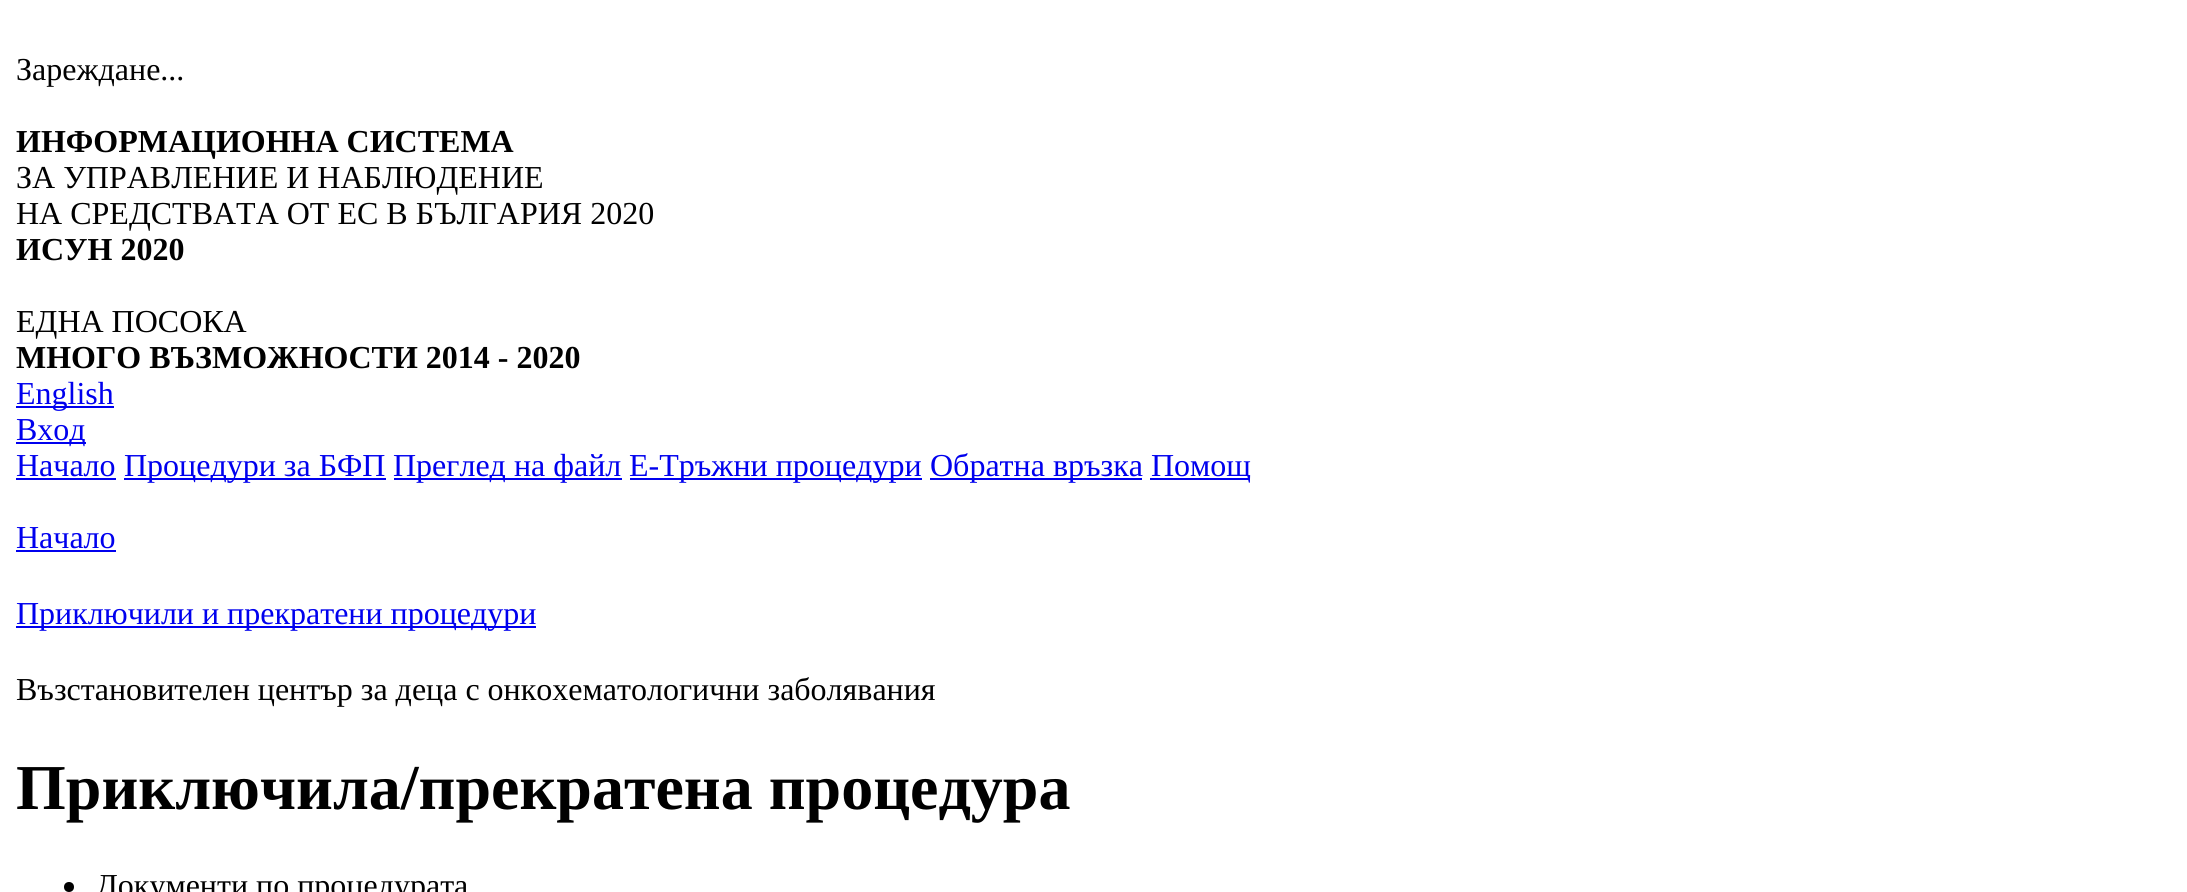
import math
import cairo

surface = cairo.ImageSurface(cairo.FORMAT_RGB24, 2187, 892)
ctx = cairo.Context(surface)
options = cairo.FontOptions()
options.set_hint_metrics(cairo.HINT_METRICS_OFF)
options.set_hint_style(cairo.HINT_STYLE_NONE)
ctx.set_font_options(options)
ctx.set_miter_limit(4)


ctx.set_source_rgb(1, 1, 1)
ctx.paint()
ctx.select_font_face("Liberation Serif")
ctx.set_font_size(32)
ctx.set_source_rgb(0, 0, 0)
ctx.move_to(16, 80)
ctx.show_text("Зареждане...")
ctx.select_font_face("Liberation Serif", cairo.FONT_SLANT_NORMAL, cairo.FONT_WEIGHT_BOLD)
ctx.move_to(16, 152)
ctx.show_text("ИНФОРМАЦИОННА СИСТЕМА")
ctx.select_font_face("Liberation Serif")
ctx.move_to(16, 188)
ctx.show_text("ЗА УПРАВЛЕНИЕ И НАБЛЮДЕНИЕ")
ctx.move_to(16, 224)
ctx.show_text("НА СРЕДСТВАТА ОТ ЕС В БЪЛГАРИЯ 2020")
ctx.select_font_face("Liberation Serif", cairo.FONT_SLANT_NORMAL, cairo.FONT_WEIGHT_BOLD)
ctx.move_to(16, 260)
ctx.show_text("ИСУН 2020")
ctx.select_font_face("Liberation Serif")
ctx.move_to(16, 332)
ctx.show_text("ЕДНА ПОСОКА")
ctx.select_font_face("Liberation Serif", cairo.FONT_SLANT_NORMAL, cairo.FONT_WEIGHT_BOLD)
ctx.move_to(16, 368)
ctx.show_text("МНОГО ВЪЗМОЖНОСТИ 2014 - 2020")
ctx.set_source_rgb(0, 0, 0.933)
ctx.rectangle(16, 406, 98, 2)
ctx.fill()
ctx.select_font_face("Liberation Serif")
ctx.move_to(16, 404)
ctx.show_text("English")
ctx.rectangle(16, 442, 70, 2)
ctx.fill()
ctx.move_to(16, 440)
ctx.show_text("Вход")
ctx.move_to(16, 476)
ctx.show_text("Начало")
ctx.rectangle(16, 478, 100, 2)
ctx.fill()
ctx.rectangle(124, 478, 262, 2)
ctx.fill()
ctx.move_to(124, 476)
ctx.show_text("Процедури за БФП")
ctx.rectangle(394, 478, 228, 2)
ctx.fill()
ctx.move_to(393, 476)
ctx.show_text("Преглед на файл")
ctx.rectangle(630, 478, 292, 2)
ctx.fill()
ctx.move_to(629, 476)
ctx.show_text("Е-Тръжни процедури")
ctx.rectangle(930, 478, 212, 2)
ctx.fill()
ctx.move_to(930, 476)
ctx.show_text("Обратна връзка")
ctx.rectangle(1150, 478, 100, 2)
ctx.fill()
ctx.move_to(1151, 476)
ctx.show_text("Помощ")
ctx.move_to(16, 548)
ctx.show_text("Начало")
ctx.rectangle(16, 550, 100, 2)
ctx.fill()
ctx.rectangle(16, 626, 520, 2)
ctx.fill()
ctx.move_to(16, 624)
ctx.show_text("Приключили и прекратени процедури")
ctx.set_source_rgb(0, 0, 0)
ctx.move_to(16, 700)
ctx.show_text("Възстановителен център за деца с онкохематологични заболявания")
ctx.select_font_face("Liberation Serif", cairo.FONT_SLANT_NORMAL, cairo.FONT_WEIGHT_BOLD)
ctx.set_font_size(64)
ctx.move_to(16, 809)
ctx.show_text("Приключилa/прекратена процедура")
ctx.new_path()
ctx.arc(69, 887, 5, 0, 2 * math.pi)
ctx.fill()
ctx.select_font_face("Liberation Serif")
ctx.set_font_size(32)
ctx.move_to(96, 896)
ctx.show_text("Документи по процедурата")
surface.write_to_png("page.png")
